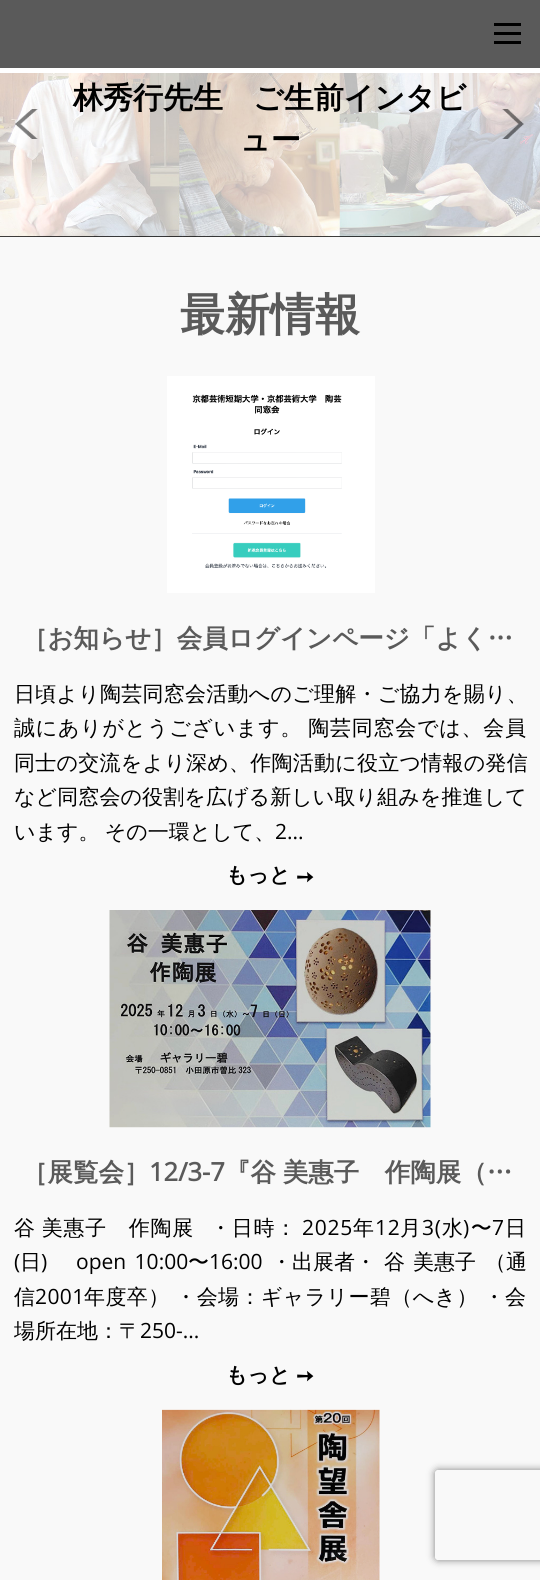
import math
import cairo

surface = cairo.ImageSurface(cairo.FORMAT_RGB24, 540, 1580)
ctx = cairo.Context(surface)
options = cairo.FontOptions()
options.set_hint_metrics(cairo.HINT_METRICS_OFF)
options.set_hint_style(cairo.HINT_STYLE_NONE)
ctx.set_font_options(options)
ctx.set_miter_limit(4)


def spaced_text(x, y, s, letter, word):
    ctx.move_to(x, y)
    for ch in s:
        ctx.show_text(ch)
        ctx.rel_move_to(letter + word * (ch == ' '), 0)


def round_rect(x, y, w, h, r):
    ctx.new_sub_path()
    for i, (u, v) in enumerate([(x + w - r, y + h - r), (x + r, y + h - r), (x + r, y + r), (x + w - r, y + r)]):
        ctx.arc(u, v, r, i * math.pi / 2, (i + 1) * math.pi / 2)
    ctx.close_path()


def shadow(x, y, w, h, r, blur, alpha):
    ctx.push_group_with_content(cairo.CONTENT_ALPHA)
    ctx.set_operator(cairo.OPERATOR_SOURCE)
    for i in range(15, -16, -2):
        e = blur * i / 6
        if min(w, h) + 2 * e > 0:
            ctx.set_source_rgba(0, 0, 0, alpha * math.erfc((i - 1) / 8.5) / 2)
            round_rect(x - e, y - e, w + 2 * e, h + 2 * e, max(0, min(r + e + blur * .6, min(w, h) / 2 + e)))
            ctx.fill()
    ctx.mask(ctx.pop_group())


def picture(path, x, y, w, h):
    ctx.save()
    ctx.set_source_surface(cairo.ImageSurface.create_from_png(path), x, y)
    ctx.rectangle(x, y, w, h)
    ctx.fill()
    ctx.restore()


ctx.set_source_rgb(0, 0, 0)
ctx.paint()
ctx.set_source_rgb(0.353, 0.353, 0.353)
ctx.rectangle(0, 0, 540, 68)
ctx.fill()
ctx.set_source_rgb(1, 1, 1)
ctx.rectangle(0, 68, 540, 5)
ctx.fill()
ctx.set_source_rgb(0, 0, 0)
ctx.rectangle(494, 41, 27, 3)
ctx.fill()
ctx.rectangle(494, 32, 27, 3)
ctx.fill()
ctx.rectangle(494, 23, 27, 3)
ctx.fill()
picture("img1.png", 0, 73, 540, 164)
picture("img2.png", 15, 109, 23, 30)
ctx.select_font_face("WenQuanYi Zen Hei", cairo.FONT_SLANT_NORMAL, cairo.FONT_WEIGHT_BOLD)
ctx.set_font_size(30)
ctx.move_to(73, 108)
ctx.show_text("林秀行先生　ご生前インタビ")
ctx.move_to(240, 150)
ctx.show_text("ュー")
picture("img3.png", 502, 109, 22, 30)
ctx.set_source_rgb(0.973, 0.973, 0.973)
ctx.rectangle(0, 237, 540, 1343)
ctx.fill()
ctx.set_font_size(45)
ctx.set_source_rgb(0.353, 0.353, 0.353)
ctx.move_to(180, 330)
ctx.show_text("最新情報")
picture("img4.png", 167, 376, 208, 217)
ctx.set_font_size(25.5)
ctx.move_to(22, 647)
ctx.show_text("［お知らせ］会員ログインページ「よく…")
ctx.select_font_face("WenQuanYi Zen Hei Medium")
ctx.set_font_size(21)
ctx.set_source_rgb(0, 0, 0)
spaced_text(14, 701, "日頃より陶芸同窓会活動へのご理解・ご協力を賜り、", 0.25, 0)
spaced_text(14, 735, "誠にありがとうございます。 陶芸同窓会では、会員", 0.75, -1)
spaced_text(14, 770, "同士の交流をより深め、作陶活動に役立つ情報の発信", 0.25, 0)
spaced_text(14, 804, "など同窓会の役割を広げる新しい取り組みを推進して", 0.1, 0)
spaced_text(14, 839, "います。 その一環として、", 0, -1)
ctx.select_font_face("Open Sans")
ctx.move_to(275, 839)
ctx.show_text("2...")
ctx.select_font_face("WenQuanYi Zen Hei", cairo.FONT_SLANT_NORMAL, cairo.FONT_WEIGHT_BOLD)
ctx.move_to(226, 882)
ctx.show_text("もっと")
ctx.select_font_face("DejaVu Sans", cairo.FONT_SLANT_NORMAL, cairo.FONT_WEIGHT_BOLD)
ctx.move_to(296, 884)
ctx.show_text("➙")
picture("img5.png", 109, 910, 322, 218)
ctx.select_font_face("WenQuanYi Zen Hei", cairo.FONT_SLANT_NORMAL, cairo.FONT_WEIGHT_BOLD)
ctx.set_font_size(25.5)
ctx.set_source_rgb(0.353, 0.353, 0.353)
ctx.move_to(22, 1181)
ctx.show_text("［展覧会］")
ctx.select_font_face("Open Sans", cairo.FONT_SLANT_NORMAL, cairo.FONT_WEIGHT_BOLD)
ctx.move_to(149, 1181)
ctx.show_text("12/3-7")
ctx.select_font_face("WenQuanYi Zen Hei", cairo.FONT_SLANT_NORMAL, cairo.FONT_WEIGHT_BOLD)
spaced_text(225, 1181, "『谷 美惠子　作陶展（…", 0, -1)
ctx.select_font_face("WenQuanYi Zen Hei Medium")
ctx.set_font_size(21)
ctx.set_source_rgb(0, 0, 0)
spaced_text(14, 1235, "谷 美惠子　作陶展", 0.75, -1)
spaced_text(210, 1235, "・日時：", 0.75, 0)
ctx.select_font_face("Open Sans")
spaced_text(302, 1235, "2025", 0.75, 0)
ctx.select_font_face("WenQuanYi Zen Hei Medium")
spaced_text(353, 1235, "年", 0.75, 0)
ctx.select_font_face("Open Sans")
spaced_text(375, 1235, "12", 0.75, 0)
ctx.select_font_face("WenQuanYi Zen Hei Medium")
spaced_text(400, 1235, "月", 0.75, 0)
ctx.select_font_face("Open Sans")
spaced_text(422, 1235, "3(", 0.75, 0)
ctx.select_font_face("WenQuanYi Zen Hei Medium")
spaced_text(442, 1235, "水 〜", 0.75, 0)
spaced_text(505, 1235, "日", 0.75, 0)
ctx.select_font_face("Open Sans")
spaced_text(463, 1235, ")", 0.75, 0)
spaced_text(492, 1235, "7", 0.75, 0)
ctx.move_to(14, 1269)
ctx.show_text("(")
ctx.select_font_face("WenQuanYi Zen Hei Medium")
ctx.move_to(20, 1269)
ctx.show_text("日")
ctx.select_font_face("Open Sans")
ctx.move_to(41, 1269)
ctx.show_text(")")
spaced_text(76, 1269, "open 10:00", 0, 3)
ctx.select_font_face("WenQuanYi Zen Hei Medium")
ctx.move_to(188, 1269)
ctx.show_text("〜")
ctx.select_font_face("Open Sans")
ctx.move_to(209, 1269)
ctx.show_text("16:00")
ctx.select_font_face("WenQuanYi Zen Hei Medium")
ctx.move_to(271, 1269)
ctx.show_text("・出展者・")
ctx.move_to(384, 1269)
ctx.show_text("谷")
ctx.move_to(413, 1269)
ctx.show_text("美惠子")
ctx.move_to(485, 1269)
ctx.show_text("（通")
spaced_text(14, 1304, "信", 0.4, 0)
ctx.select_font_face("Open Sans")
spaced_text(35, 1304, "2001", 0.4, 0)
ctx.select_font_face("WenQuanYi Zen Hei Medium")
spaced_text(84, 1304, "年度卒） ・会場：ギャラリー碧（へき） ・会", 0.4, -1)
ctx.save()
ctx.rectangle(14, 1209, 513, 138)
ctx.clip()
ctx.move_to(14, 1338)
ctx.show_text("場所在地：〒")
ctx.restore()
ctx.select_font_face("Open Sans")
ctx.move_to(140, 1338)
ctx.show_text("250-...")
ctx.select_font_face("WenQuanYi Zen Hei", cairo.FONT_SLANT_NORMAL, cairo.FONT_WEIGHT_BOLD)
ctx.move_to(226, 1382)
ctx.show_text("もっと")
ctx.select_font_face("DejaVu Sans", cairo.FONT_SLANT_NORMAL, cairo.FONT_WEIGHT_BOLD)
ctx.move_to(296, 1383)
ctx.show_text("➙")
picture("img6.png", 162, 1409, 218, 171)
ctx.save()
ctx.set_fill_rule(cairo.FILL_RULE_EVEN_ODD)
ctx.new_path()
ctx.move_to(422, 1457)
ctx.line_to(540, 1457)
ctx.line_to(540, 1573)
ctx.line_to(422, 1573)
ctx.close_path()
ctx.move_to(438, 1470)
ctx.line_to(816, 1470)
ctx.curve_to(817.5, 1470, 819, 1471.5, 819, 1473)
ctx.line_to(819, 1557)
ctx.curve_to(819, 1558.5, 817.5, 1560, 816, 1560)
ctx.line_to(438, 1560)
ctx.curve_to(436.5, 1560, 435, 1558.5, 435, 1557)
ctx.line_to(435, 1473)
ctx.curve_to(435, 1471.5, 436.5, 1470, 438, 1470)
ctx.close_path()
ctx.clip()
ctx.set_source_rgb(0.502, 0.502, 0.502)
shadow(435, 1470, 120, 90, 3, 4, 1)
ctx.restore()
surface.write_to_png("page.png")
